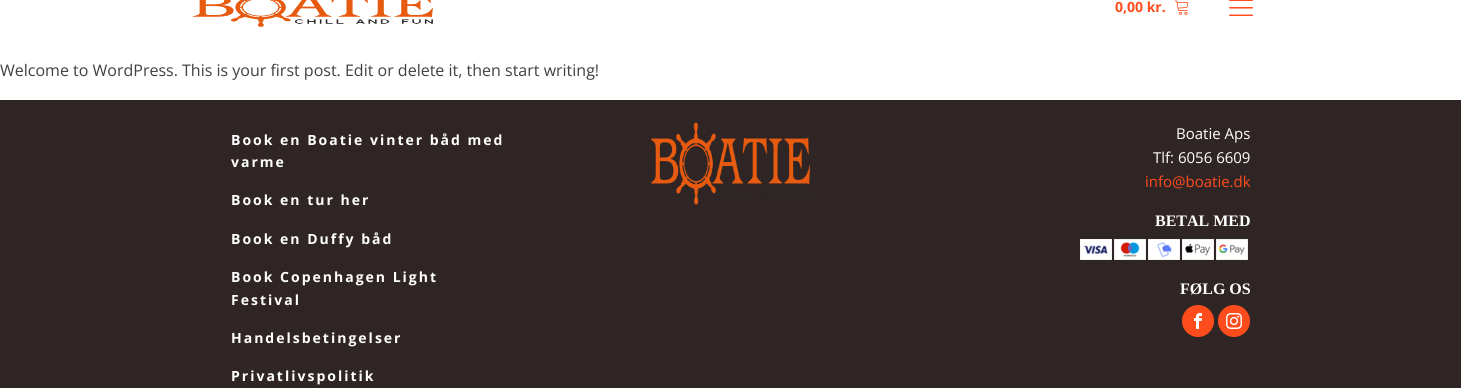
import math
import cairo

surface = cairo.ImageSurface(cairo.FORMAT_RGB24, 1461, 388)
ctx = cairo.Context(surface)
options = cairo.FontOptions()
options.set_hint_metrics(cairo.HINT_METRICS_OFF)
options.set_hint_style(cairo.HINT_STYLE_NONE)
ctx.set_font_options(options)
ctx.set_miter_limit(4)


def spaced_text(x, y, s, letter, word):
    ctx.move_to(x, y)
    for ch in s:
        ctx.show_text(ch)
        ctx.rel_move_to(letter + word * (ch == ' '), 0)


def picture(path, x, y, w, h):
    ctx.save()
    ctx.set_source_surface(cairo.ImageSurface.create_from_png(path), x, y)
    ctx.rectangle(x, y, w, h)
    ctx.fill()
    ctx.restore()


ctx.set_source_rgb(1, 1, 1)
ctx.paint()
picture("img1.png", 192, 0, 241, 27)
ctx.select_font_face("Open Sans", cairo.FONT_SLANT_NORMAL, cairo.FONT_WEIGHT_BOLD)
ctx.set_font_size(14)
ctx.set_source_rgb(1, 0.298, 0.11)
ctx.move_to(1115, 12)
ctx.show_text("0,00 kr.")
picture("img2.png", 1174, 0, 15, 15)
picture("img3.png", 1229, 0, 24, 16)
ctx.select_font_face("Open Sans")
ctx.set_font_size(16)
ctx.set_source_rgb(0.251, 0.251, 0.251)
ctx.move_to(0, 76)
ctx.show_text("Welcome to WordPress. This is your first post. Edit or delete it, then start writing!")
ctx.set_source_rgb(0.188, 0.145, 0.145)
ctx.rectangle(0, 101, 1461, 287)
ctx.fill()
ctx.set_source_rgb(0.169, 0.129, 0.129)
ctx.rectangle(0, 100, 1461, 1)
ctx.fill()
ctx.select_font_face("Open Sans", cairo.FONT_SLANT_NORMAL, cairo.FONT_WEIGHT_BOLD)
ctx.set_font_size(14)
ctx.set_source_rgb(1, 1, 1)
spaced_text(231, 145, "Book en Boatie vinter båd med", 2, 0)
spaced_text(231, 167, "varme", 2, 0)
spaced_text(231, 205, "Book en tur her", 2, 0)
spaced_text(231, 244, "Book en Duffy båd", 2, 0)
spaced_text(231, 282, "Book Copenhagen Light", 2, 0)
spaced_text(231, 305, "Festival", 2, 0)
spaced_text(231, 343, "Handelsbetingelser", 2, 0)
spaced_text(231, 381, "Privatlivspolitik", 2, 0)
picture("img4.png", 650, 122, 160, 83)
ctx.select_font_face("Open Sans")
ctx.set_font_size(15)
ctx.move_to(1176, 139)
ctx.show_text("Boatie Aps")
ctx.move_to(1153, 163)
ctx.show_text("Tlf: 6056 6609")
ctx.set_source_rgb(1, 0.298, 0.11)
ctx.move_to(1145, 187)
ctx.show_text("info@boatie.dk")
ctx.select_font_face("Liberation Serif", cairo.FONT_SLANT_NORMAL, cairo.FONT_WEIGHT_BOLD)
ctx.set_font_size(16)
ctx.set_source_rgb(1, 1, 1)
ctx.move_to(1155, 226)
ctx.show_text("BETAL MED")
picture("img5.png", 1080, 239, 168, 21)
ctx.move_to(1180, 294)
ctx.show_text("FØLG OS")
ctx.set_source_rgb(1, 0.298, 0.11)
ctx.new_path()
ctx.arc(1198, 321, 16, 0, 2 * math.pi)
ctx.fill()
picture("img6.png", 1194, 313, 8, 16)
ctx.arc(1234, 321, 16, 0, 2 * math.pi)
ctx.fill()
picture("img7.png", 1226, 313, 16, 16)
surface.write_to_png("page.png")
